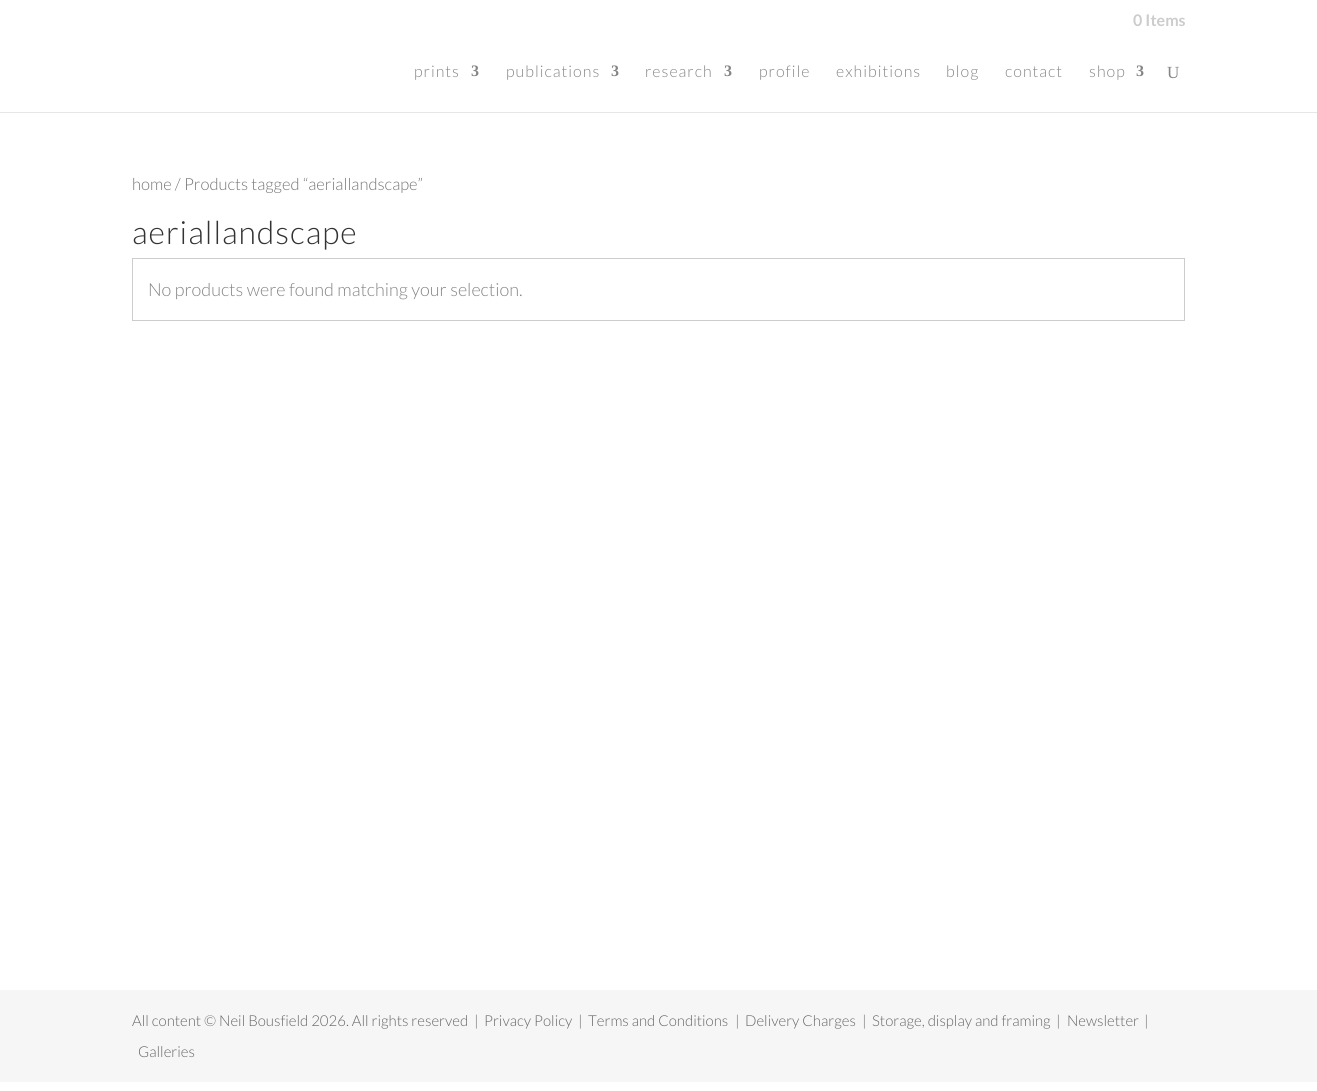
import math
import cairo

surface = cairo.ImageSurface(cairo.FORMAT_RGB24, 1317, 1091)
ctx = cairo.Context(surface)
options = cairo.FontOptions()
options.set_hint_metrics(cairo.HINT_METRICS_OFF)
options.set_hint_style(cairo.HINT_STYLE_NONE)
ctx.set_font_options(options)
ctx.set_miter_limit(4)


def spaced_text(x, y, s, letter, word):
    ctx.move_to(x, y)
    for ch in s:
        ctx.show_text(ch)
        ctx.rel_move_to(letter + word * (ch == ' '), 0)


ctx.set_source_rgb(1, 1, 1)
ctx.paint()
ctx.select_font_face("Lato", cairo.FONT_SLANT_NORMAL, cairo.FONT_WEIGHT_BOLD)
ctx.set_font_size(16)
ctx.set_source_rgb(0.8, 0.8, 0.8)
ctx.move_to(1133, 26)
ctx.show_text("0 Items")
ctx.set_source_rgb(0.902, 0.902, 0.902)
ctx.rectangle(0, 112, 1317, 1)
ctx.fill()
ctx.select_font_face("Lato Light")
ctx.set_source_rgb(0.522, 0.522, 0.522)
spaced_text(414, 77, "prints", 1, 0)
ctx.select_font_face("Liberation Serif", cairo.FONT_SLANT_NORMAL, cairo.FONT_WEIGHT_BOLD)
spaced_text(471, 76, "3", 1, 0)
ctx.select_font_face("Lato Light")
spaced_text(506, 77, "publications", 1, 0)
ctx.select_font_face("Liberation Serif", cairo.FONT_SLANT_NORMAL, cairo.FONT_WEIGHT_BOLD)
spaced_text(611, 76, "3", 1, 0)
ctx.select_font_face("Lato Light")
spaced_text(645, 77, "research", 1, 0)
ctx.select_font_face("Liberation Serif", cairo.FONT_SLANT_NORMAL, cairo.FONT_WEIGHT_BOLD)
spaced_text(724, 76, "3", 1, 0)
ctx.select_font_face("Lato Light")
spaced_text(759, 77, "profile", 1, 0)
spaced_text(836, 77, "exhibitions", 1, 0)
spaced_text(946, 77, "blog", 1, 0)
spaced_text(1005, 77, "contact", 1, 0)
spaced_text(1089, 77, "shop", 1, 0)
ctx.select_font_face("Liberation Serif", cairo.FONT_SLANT_NORMAL, cairo.FONT_WEIGHT_BOLD)
spaced_text(1136, 76, "3", 1, 0)
ctx.select_font_face("Liberation Serif")
ctx.set_font_size(17)
ctx.move_to(1167, 78)
ctx.show_text("U")
ctx.select_font_face("Lato Light")
ctx.set_font_size(16.6)
ctx.set_source_rgb(0.463, 0.463, 0.463)
ctx.move_to(132, 190)
ctx.show_text("home / Products tagged “aeriallandscape”")
ctx.set_font_size(32)
ctx.set_source_rgb(0.2, 0.2, 0.2)
spaced_text(132, 244, "aeriallandscape", 1, 0)
ctx.rectangle(132.5, 258.5, 1052, 62)
ctx.set_source_rgb(0.8, 0.8, 0.8)
ctx.set_line_width(1)
ctx.stroke()
ctx.set_font_size(18)
ctx.set_source_rgb(0.522, 0.522, 0.522)
ctx.move_to(148, 296)
ctx.show_text("No products were found matching your selection.")
ctx.set_source_rgb(0.961, 0.961, 0.961)
ctx.rectangle(0, 990, 1317, 92)
ctx.fill()
ctx.set_font_size(15)
ctx.set_source_rgb(0.4, 0.4, 0.4)
ctx.move_to(132, 1026)
ctx.show_text("All content © Neil Bousfield 2026. All rights reserved  |")
ctx.move_to(484, 1026)
ctx.show_text("Privacy Policy")
ctx.move_to(578, 1026)
ctx.show_text("|")
ctx.move_to(588, 1026)
ctx.show_text("Terms and Conditions")
ctx.move_to(735, 1026)
ctx.show_text("|")
ctx.move_to(745, 1026)
ctx.show_text("Delivery Charges")
ctx.move_to(862, 1026)
ctx.show_text("|")
ctx.move_to(872, 1026)
ctx.show_text("Storage, display and framing")
ctx.move_to(1056, 1026)
ctx.show_text("|")
ctx.move_to(1067, 1026)
ctx.show_text("Newsletter")
ctx.move_to(1144, 1026)
ctx.show_text("|")
ctx.move_to(138, 1057)
ctx.show_text("Galleries")
surface.write_to_png("page.png")
